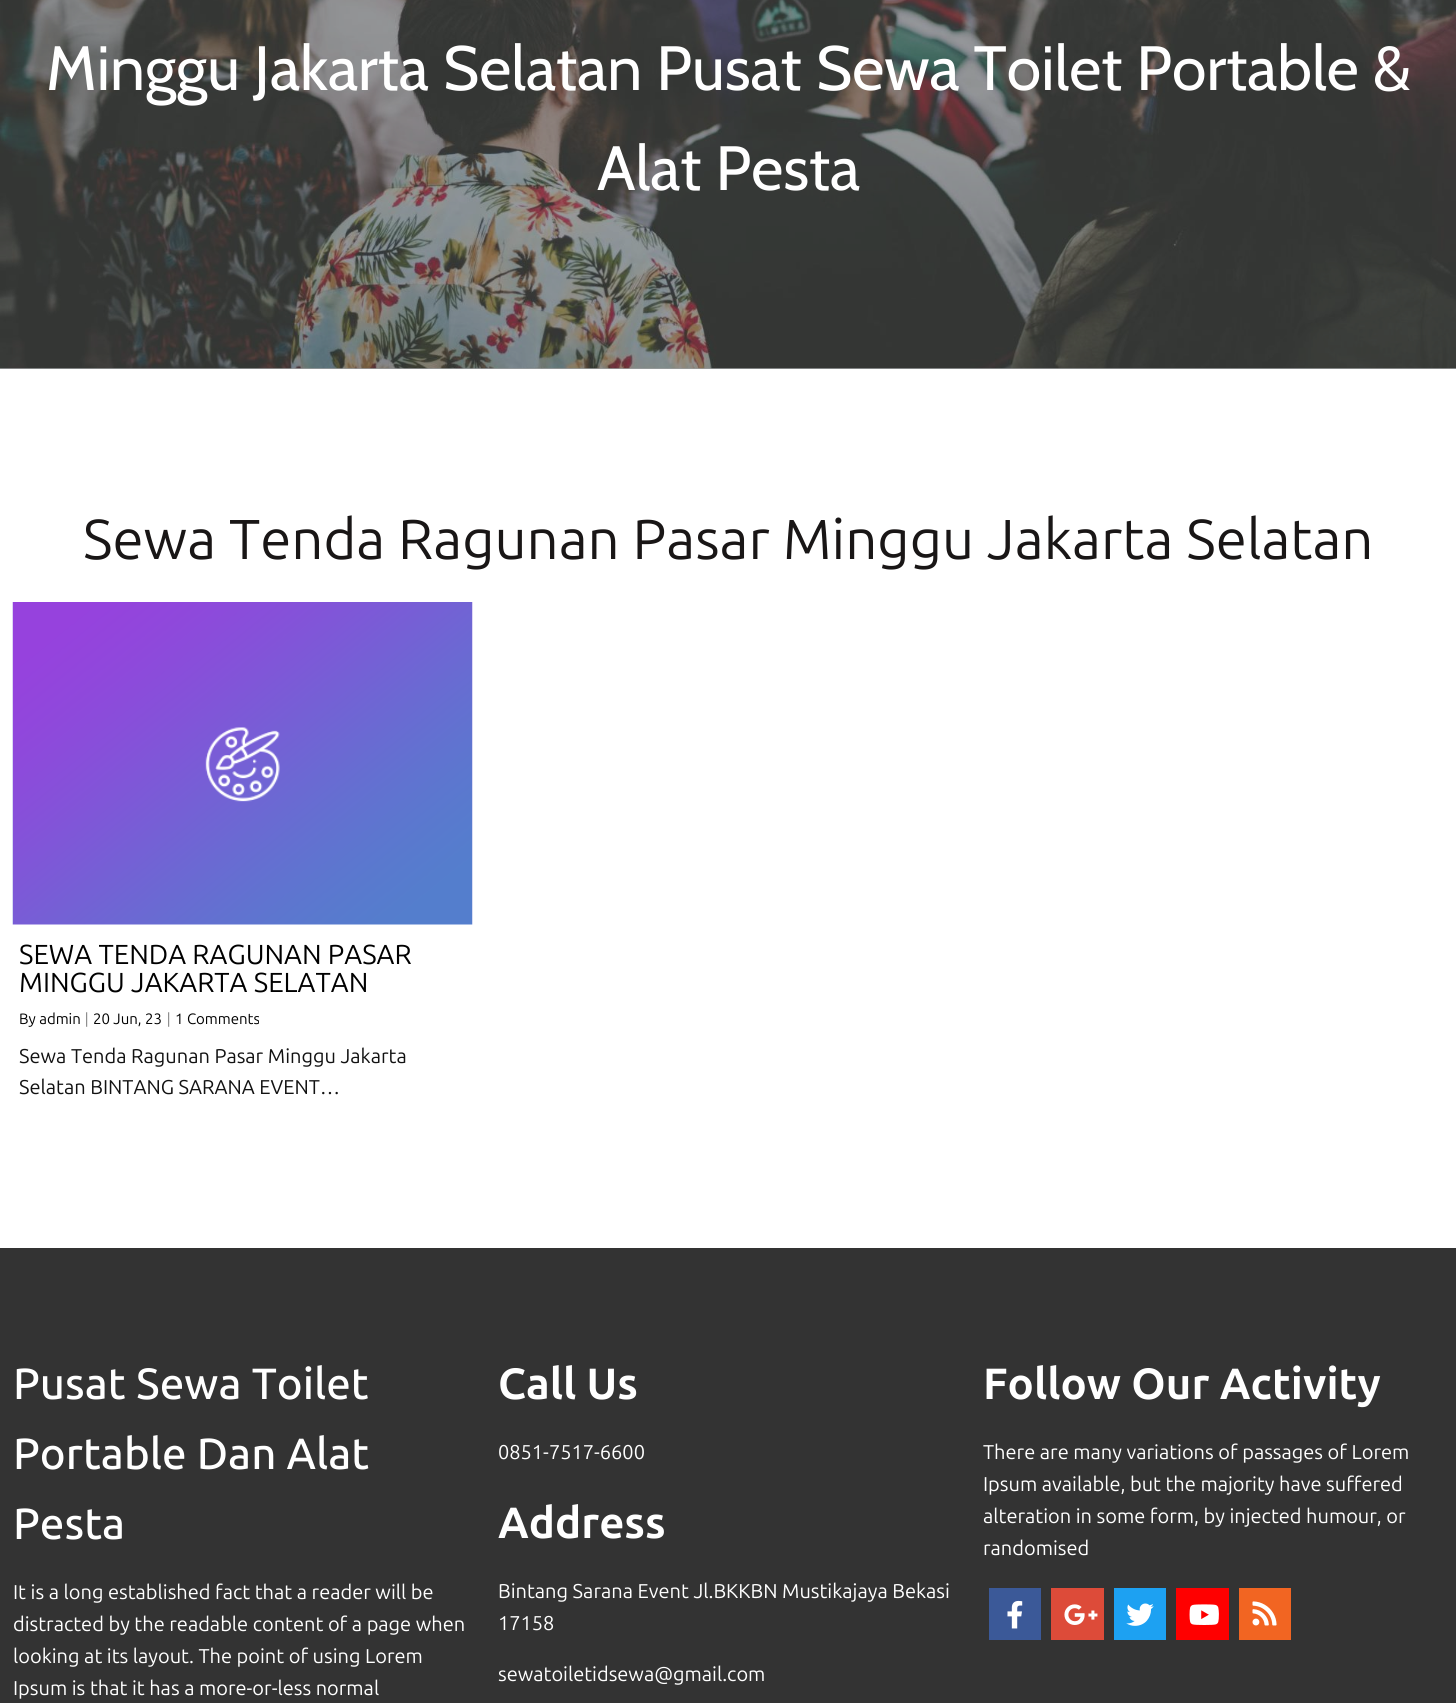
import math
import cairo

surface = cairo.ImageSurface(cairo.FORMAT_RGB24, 1456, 1703)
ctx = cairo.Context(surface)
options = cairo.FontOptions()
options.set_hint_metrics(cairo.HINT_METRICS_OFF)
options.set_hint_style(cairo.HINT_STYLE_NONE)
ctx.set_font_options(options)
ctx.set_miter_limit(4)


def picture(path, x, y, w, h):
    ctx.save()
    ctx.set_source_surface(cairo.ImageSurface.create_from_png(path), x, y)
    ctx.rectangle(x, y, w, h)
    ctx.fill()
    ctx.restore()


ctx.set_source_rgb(1, 1, 1)
ctx.paint()
ctx.set_source_rgb(0.604, 0.612, 0.616)
ctx.rectangle(0, 368, 1456, 1)
ctx.fill()
picture("img1.png", 0, 0, 1456, 369)
ctx.select_font_face("Cabin")
ctx.set_font_size(62.5)
ctx.set_source_rgb(1, 1, 1)
ctx.move_to(46, 90)
ctx.show_text("Minggu Jakarta Selatan Pusat Sewa Toilet Portable &")
ctx.move_to(597, 190)
ctx.show_text("Alat Pesta")
ctx.select_font_face("Ubuntu")
ctx.set_font_size(56.25)
ctx.set_source_rgb(0.098, 0.086, 0.086)
ctx.move_to(83, 559)
ctx.show_text("Sewa Tenda Ragunan Pasar Minggu Jakarta Selatan")
picture("img2.png", 12, 602, 461, 323)
ctx.set_font_size(27.5)
ctx.set_source_rgb(0, 0, 0)
ctx.move_to(19, 964)
ctx.show_text("SEWA TENDA RAGUNAN PASAR")
ctx.move_to(19, 992)
ctx.show_text("MINGGU JAKARTA SELATAN")
ctx.set_font_size(15)
ctx.move_to(19, 1024)
ctx.show_text("By admin")
ctx.select_font_face("Ubuntu Thin")
ctx.move_to(85, 1024)
ctx.show_text("|")
ctx.select_font_face("Ubuntu")
ctx.move_to(93, 1024)
ctx.show_text("20 Jun, 23")
ctx.select_font_face("Ubuntu Thin")
ctx.move_to(167, 1024)
ctx.show_text("|")
ctx.select_font_face("Ubuntu")
ctx.move_to(175, 1024)
ctx.show_text("1 Comments")
ctx.set_font_size(20)
ctx.set_source_rgb(0.071, 0.071, 0.071)
ctx.move_to(19, 1063)
ctx.show_text("Sewa Tenda Ragunan Pasar Minggu Jakarta")
ctx.move_to(19, 1094)
ctx.show_text("Selatan BINTANG SARANA EVENT…")
ctx.set_source_rgb(0.2, 0.2, 0.2)
ctx.rectangle(0, 1248, 1456, 455)
ctx.fill()
ctx.select_font_face("Ubuntu Medium")
ctx.set_font_size(43.75)
ctx.set_source_rgb(1, 1, 1)
ctx.move_to(13, 1399)
ctx.show_text("Pusat Sewa Toilet")
ctx.move_to(13, 1469)
ctx.show_text("Portable Dan Alat")
ctx.move_to(13, 1539)
ctx.show_text("Pesta")
ctx.select_font_face("Ubuntu")
ctx.set_font_size(20)
ctx.move_to(13, 1599)
ctx.show_text("It is a long established fact that a reader will be")
ctx.move_to(13, 1631)
ctx.show_text("distracted by the readable content of a page when")
ctx.move_to(13, 1663)
ctx.show_text("looking at its layout. The point of using Lorem")
ctx.move_to(13, 1695)
ctx.show_text("Ipsum is that it has a more-or-less normal")
ctx.select_font_face("Ubuntu", cairo.FONT_SLANT_NORMAL, cairo.FONT_WEIGHT_BOLD)
ctx.set_font_size(43.75)
ctx.move_to(498, 1399)
ctx.show_text("Call Us")
ctx.select_font_face("Ubuntu")
ctx.set_font_size(20)
ctx.move_to(498, 1459)
ctx.show_text("0851-7517-6600")
ctx.select_font_face("Ubuntu", cairo.FONT_SLANT_NORMAL, cairo.FONT_WEIGHT_BOLD)
ctx.set_font_size(43.75)
ctx.move_to(498, 1538)
ctx.show_text("Address")
ctx.select_font_face("Ubuntu")
ctx.set_font_size(20)
ctx.move_to(498, 1598)
ctx.show_text("Bintang Sarana Event Jl.BKKBN Mustikajaya Bekasi")
ctx.move_to(498, 1630)
ctx.show_text("17158")
ctx.move_to(498, 1681)
ctx.show_text("sewatoiletidsewa@gmail.com")
ctx.select_font_face("Ubuntu", cairo.FONT_SLANT_NORMAL, cairo.FONT_WEIGHT_BOLD)
ctx.set_font_size(43.75)
ctx.move_to(983, 1399)
ctx.show_text("Follow Our Activity")
ctx.select_font_face("Ubuntu")
ctx.set_font_size(20)
ctx.move_to(983, 1459)
ctx.show_text("There are many variations of passages of Lorem")
ctx.move_to(983, 1491)
ctx.show_text("Ipsum available, but the majority have suffered")
ctx.move_to(983, 1523)
ctx.show_text("alteration in some form, by injected humour, or")
ctx.move_to(983, 1555)
ctx.show_text("randomised")
ctx.set_source_rgb(0.231, 0.349, 0.596)
ctx.rectangle(989, 1588, 52, 52)
ctx.fill()
picture("img3.png", 1007, 1600, 16, 29)
ctx.set_source_rgb(0.867, 0.294, 0.224)
ctx.rectangle(1051, 1588, 53, 52)
ctx.fill()
picture("img4.png", 1064, 1604, 34, 21)
ctx.set_source_rgb(0.114, 0.631, 0.949)
ctx.rectangle(1114, 1588, 52, 52)
ctx.fill()
picture("img5.png", 1126, 1603, 28, 23)
ctx.set_source_rgb(1, 0, 0)
ctx.rectangle(1176, 1588, 53, 52)
ctx.fill()
picture("img6.png", 1189, 1604, 30, 21)
ctx.set_source_rgb(0.949, 0.396, 0.133)
ctx.rectangle(1239, 1588, 52, 52)
ctx.fill()
picture("img7.png", 1252, 1601, 25, 25)
surface.write_to_png("page.png")
